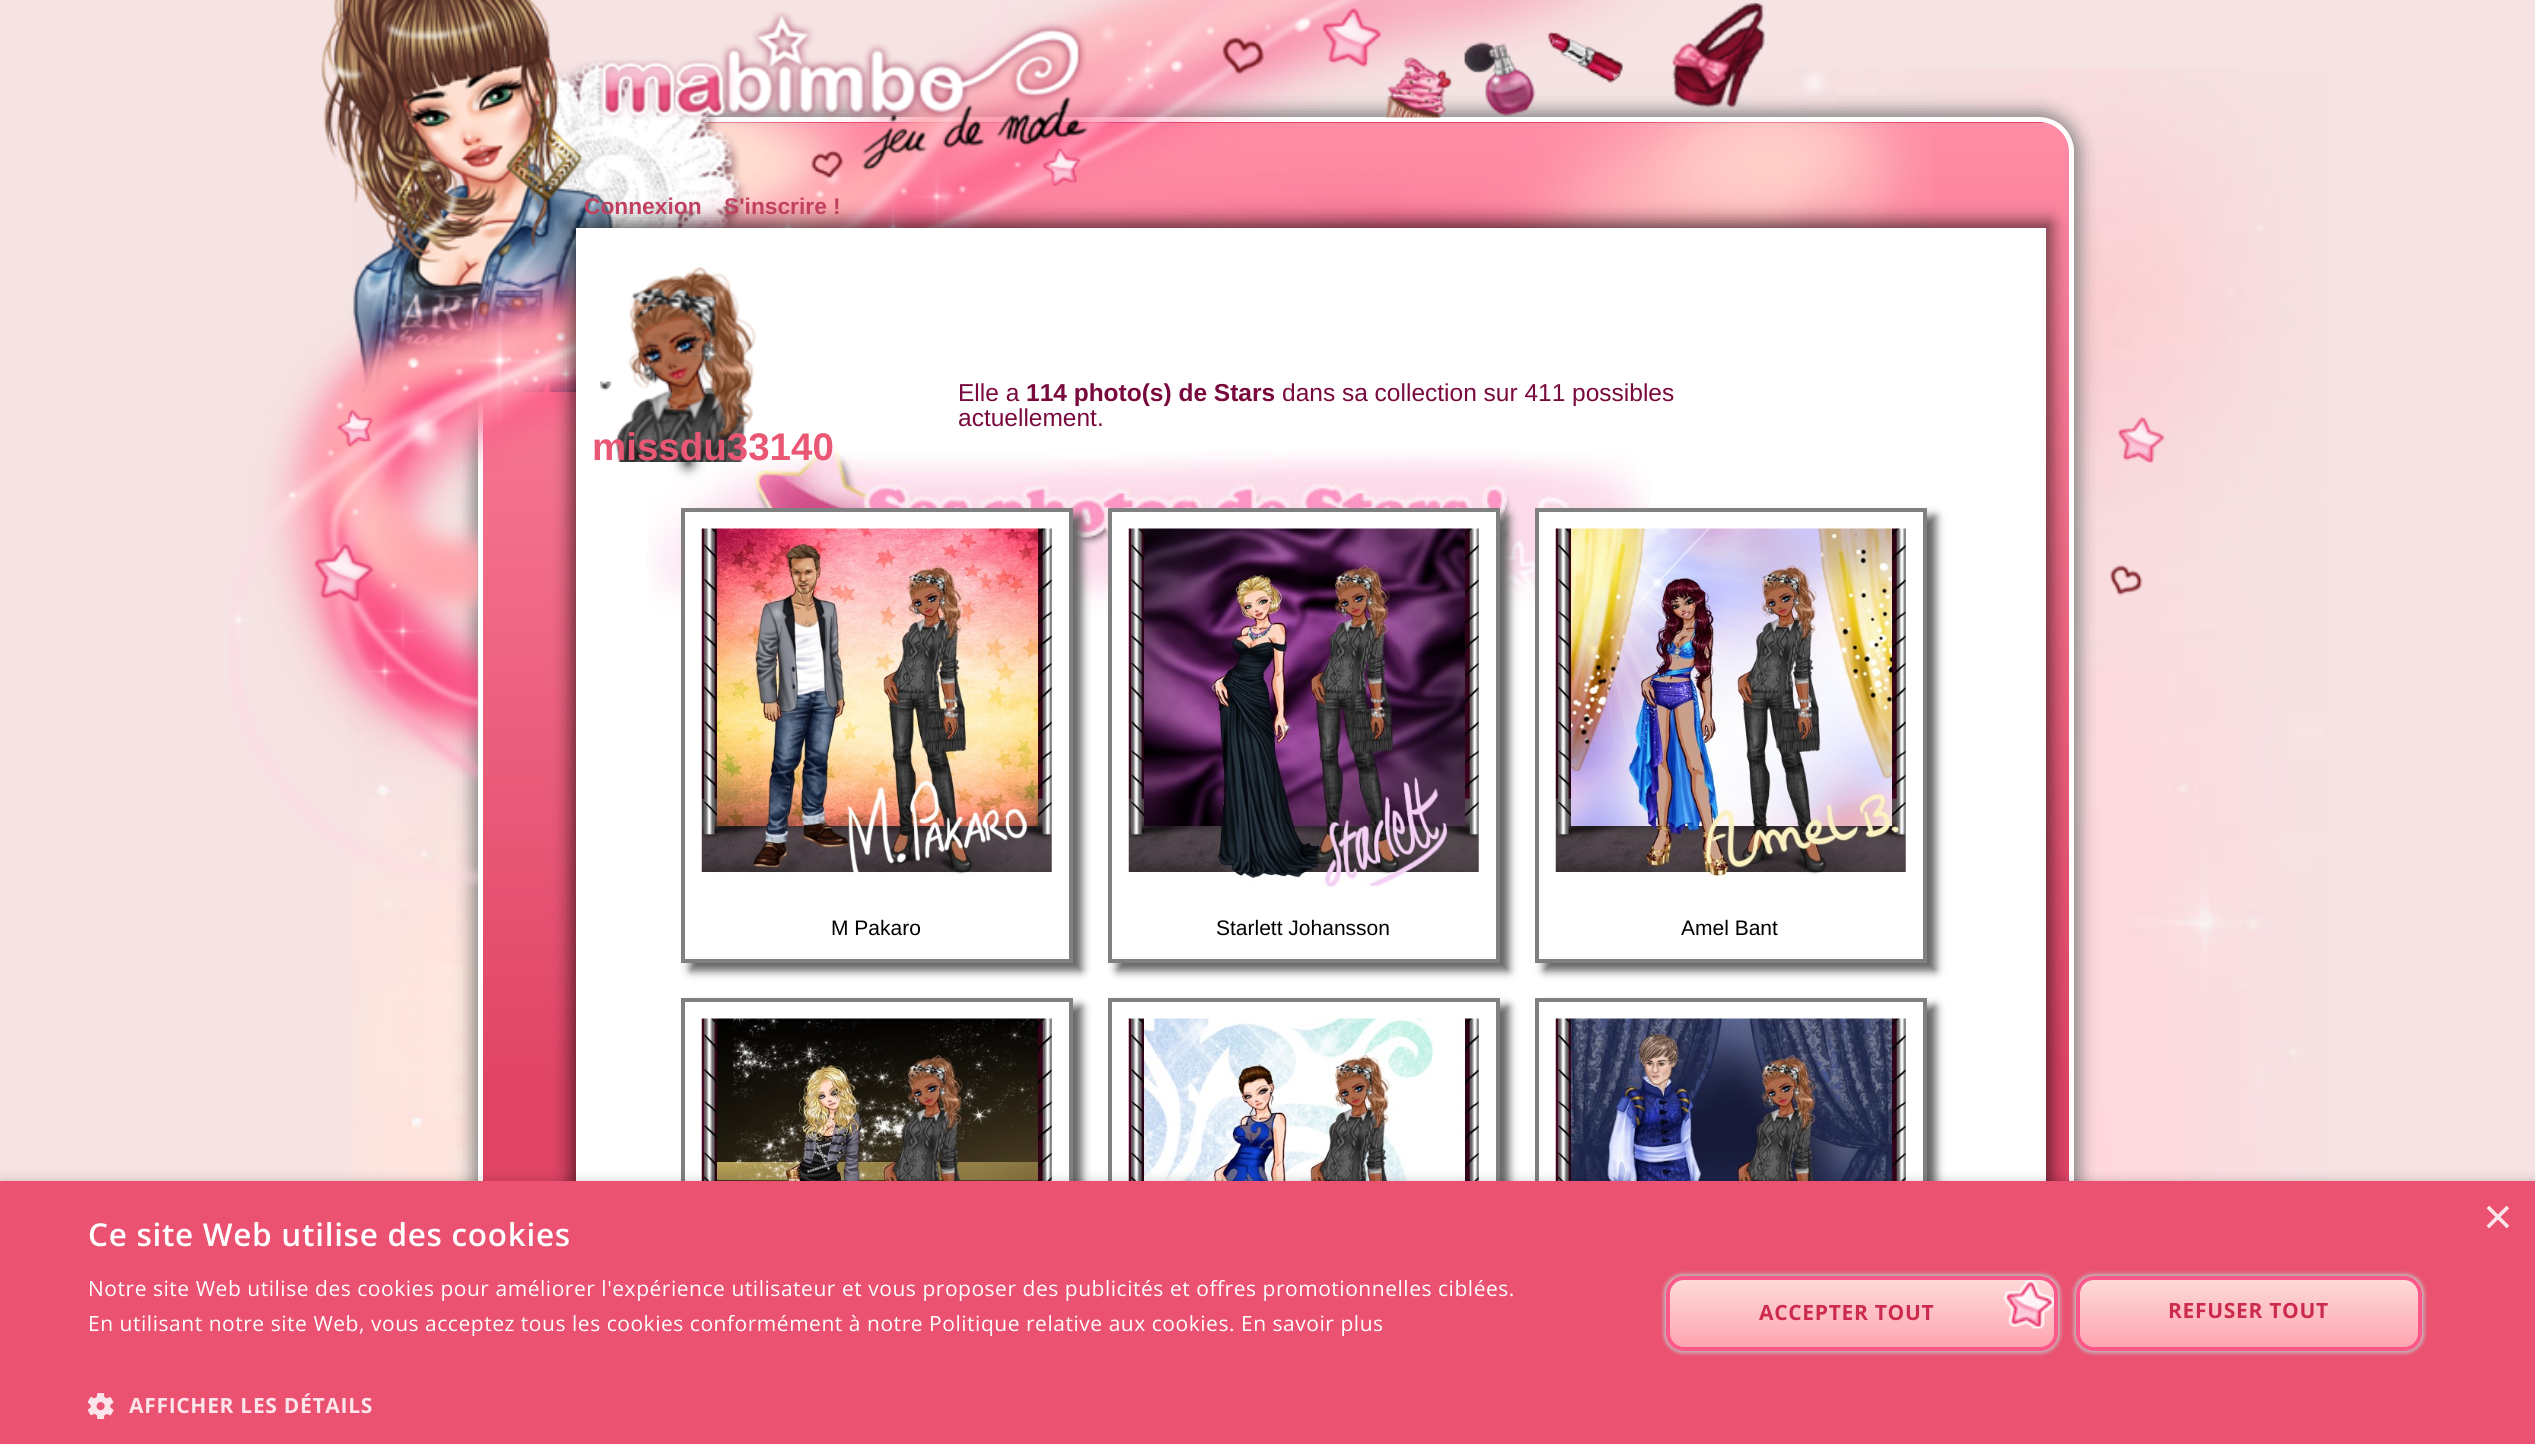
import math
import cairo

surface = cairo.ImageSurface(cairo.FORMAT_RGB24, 2535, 1444)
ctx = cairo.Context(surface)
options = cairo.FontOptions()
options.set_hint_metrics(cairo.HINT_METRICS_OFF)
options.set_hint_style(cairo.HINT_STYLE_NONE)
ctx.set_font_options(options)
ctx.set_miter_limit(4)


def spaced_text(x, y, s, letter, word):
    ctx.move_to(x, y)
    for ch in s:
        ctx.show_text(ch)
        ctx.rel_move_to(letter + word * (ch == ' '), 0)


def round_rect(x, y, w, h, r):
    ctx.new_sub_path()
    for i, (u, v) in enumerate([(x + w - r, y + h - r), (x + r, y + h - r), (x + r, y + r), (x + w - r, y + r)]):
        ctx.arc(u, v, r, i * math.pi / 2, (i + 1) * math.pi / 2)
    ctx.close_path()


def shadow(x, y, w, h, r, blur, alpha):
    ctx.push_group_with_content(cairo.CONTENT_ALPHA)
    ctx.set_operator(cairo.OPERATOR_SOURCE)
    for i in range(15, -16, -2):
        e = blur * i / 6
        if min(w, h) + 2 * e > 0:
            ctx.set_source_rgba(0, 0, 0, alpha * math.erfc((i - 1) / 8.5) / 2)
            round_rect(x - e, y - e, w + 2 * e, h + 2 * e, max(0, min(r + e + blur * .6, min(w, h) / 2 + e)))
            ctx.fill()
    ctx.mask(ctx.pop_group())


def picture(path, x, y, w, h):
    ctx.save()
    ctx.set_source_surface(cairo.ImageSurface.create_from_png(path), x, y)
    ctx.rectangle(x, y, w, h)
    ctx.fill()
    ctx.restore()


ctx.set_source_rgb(0.961, 0.89, 0.89)
ctx.paint()
picture("img1.png", 347, 67, 1983, 1114)
ctx.set_source_rgb(0.502, 0.502, 0.502)
shadow(473, 112, 1606, 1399, 40, 9, 1)
ctx.save()
round_rect(478, 117, 1596, 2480, 35)
ctx.clip()
gradient = cairo.LinearGradient(483, 123, 483, -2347)
gradient.add_color_stop_rgba(0.61, 0.878, 0.267, 0.4, 1)
gradient.add_color_stop_rgba(1, 1, 0.549, 0.647, 1)
ctx.set_source(gradient)
ctx.rectangle(699, 117, 1360, 6)
ctx.fill()
gradient = cairo.LinearGradient(483, 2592, 483, 123)
gradient.add_color_stop_rgba(0.61, 0.878, 0.267, 0.4, 1)
gradient.add_color_stop_rgba(1, 1, 0.549, 0.647, 1)
ctx.set_source(gradient)
ctx.rectangle(483, 123, 1591, 1058)
ctx.fill()
ctx.restore()
round_rect(480.5, 119.5, 1591, 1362, 32.5)
ctx.set_source_rgb(1, 1, 1)
ctx.set_line_width(5)
ctx.stroke()
picture("img5.png", 524, 60, 1410, 168)
picture("img4.png", 320, 0, 293, 392)
picture("img3.png", 228, 0, 1937, 887)
picture("img2.png", 598, 11, 490, 160)
ctx.set_source_rgb(0, 0, 0)
shadow(571, 222, 1480, 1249, 0, 9, 0.6)
ctx.select_font_face("Liberation Sans", cairo.FONT_SLANT_NORMAL, cairo.FONT_WEIGHT_BOLD)
ctx.set_font_size(22.75)
ctx.set_source_rgb(0.753, 0.251, 0.376)
ctx.move_to(584, 214)
ctx.show_text("Connexion")
ctx.move_to(724, 214)
ctx.show_text("S'inscrire !")
ctx.set_source_rgb(1, 1, 1)
ctx.rectangle(576, 228, 1470, 953)
ctx.fill()
ctx.select_font_face("Liberation Sans")
ctx.set_font_size(24.5)
ctx.set_source_rgb(0.475, 0.039, 0.239)
ctx.move_to(958, 401)
ctx.show_text("Elle a")
ctx.select_font_face("Liberation Sans", cairo.FONT_SLANT_NORMAL, cairo.FONT_WEIGHT_BOLD)
ctx.move_to(1026, 401)
ctx.show_text("114 photo(s) de Stars")
ctx.select_font_face("Liberation Sans")
ctx.move_to(1282, 401)
ctx.show_text("dans sa collection sur 411 possibles")
ctx.move_to(958, 426)
ctx.show_text("actuellement.")
picture("img6.png", 647, 445, 1003, 169)
ctx.set_source_rgb(0, 0, 0)
shadow(686, 355, 4, 109, 0, 7, 1)
picture("img7.png", 600, 267, 157, 195)
ctx.select_font_face("Liberation Sans", cairo.FONT_SLANT_NORMAL, cairo.FONT_WEIGHT_BOLD)
ctx.set_font_size(38.5)
ctx.set_source_rgb(0.914, 0.341, 0.455)
ctx.move_to(592, 460)
ctx.show_text("missdu33140")
ctx.set_source_rgb(0.396, 0.396, 0.396)
shadow(690, 516, 392, 455, 0, 4.5, 1)
ctx.set_source_rgb(1, 1, 1)
ctx.rectangle(683, 510, 388, 451)
ctx.fill_preserve()
ctx.set_source_rgb(0.502, 0.502, 0.502)
ctx.set_line_width(4)
ctx.stroke()
picture("img8.png", 701, 528, 351, 347)
ctx.select_font_face("Liberation Sans")
ctx.set_font_size(21)
ctx.set_source_rgb(0, 0, 0)
ctx.move_to(831, 935)
ctx.show_text("M Pakaro")
ctx.set_source_rgb(0.396, 0.396, 0.396)
shadow(1117, 516, 392, 455, 0, 4.5, 1)
ctx.set_source_rgb(1, 1, 1)
ctx.rectangle(1110, 510, 388, 451)
ctx.fill_preserve()
ctx.set_source_rgb(0.502, 0.502, 0.502)
ctx.stroke()
picture("img9.png", 1128, 528, 351, 361)
ctx.set_source_rgb(0, 0, 0)
ctx.move_to(1216, 935)
ctx.show_text("Starlett Johansson")
ctx.set_source_rgb(0.396, 0.396, 0.396)
shadow(1544, 516, 392, 455, 0, 4.5, 1)
ctx.set_source_rgb(1, 1, 1)
ctx.rectangle(1537, 510, 388, 451)
ctx.fill_preserve()
ctx.set_source_rgb(0.502, 0.502, 0.502)
ctx.stroke()
picture("img10.png", 1555, 528, 351, 355)
ctx.set_source_rgb(0, 0, 0)
ctx.move_to(1681, 935)
ctx.show_text("Amel Bant")
ctx.set_source_rgb(0.396, 0.396, 0.396)
shadow(690, 1006, 392, 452, 0, 4.5, 1)
ctx.set_source_rgb(1, 1, 1)
ctx.rectangle(685, 1002, 384, 179)
ctx.fill()
ctx.rectangle(683, 1000, 388, 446)
ctx.set_source_rgb(0.502, 0.502, 0.502)
ctx.stroke()
picture("img11.png", 701, 1018, 351, 163)
ctx.set_source_rgb(0.396, 0.396, 0.396)
shadow(1117, 1006, 392, 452, 0, 4.5, 1)
ctx.set_source_rgb(1, 1, 1)
ctx.rectangle(1112, 1002, 384, 179)
ctx.fill()
ctx.rectangle(1110, 1000, 388, 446)
ctx.set_source_rgb(0.502, 0.502, 0.502)
ctx.stroke()
picture("img12.png", 1128, 1018, 351, 163)
ctx.set_source_rgb(0.396, 0.396, 0.396)
shadow(1544, 1006, 392, 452, 0, 4.5, 1)
ctx.set_source_rgb(1, 1, 1)
ctx.rectangle(1539, 1002, 384, 179)
ctx.fill()
ctx.rectangle(1537, 1000, 388, 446)
ctx.set_source_rgb(0.502, 0.502, 0.502)
ctx.stroke()
picture("img13.png", 1555, 1018, 351, 163)
ctx.set_source_rgb(0, 0, 0)
shadow(2, 1185, 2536, 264, 0, 7, 0.35)
ctx.set_source_rgb(0.918, 0.318, 0.439)
ctx.rectangle(0, 1181, 2535, 263)
ctx.fill()
ctx.set_font_size(51)
ctx.set_source_rgb(0.988, 0.898, 0.918)
ctx.move_to(2483, 1234)
ctx.show_text("×")
ctx.select_font_face("Open Sans SemiBold")
ctx.set_font_size(31.5)
ctx.set_source_rgb(1, 1, 1)
spaced_text(88, 1246, "Ce site Web utilise des cookies", 0.7, 0)
ctx.select_font_face("Open Sans")
ctx.set_font_size(21)
spaced_text(88, 1296, "Notre site Web utilise des cookies pour améliorer l'expérience utilisateur et vous proposer des publicités et offres promotionnelles ciblées.", 0.53, 0)
spaced_text(88, 1331, "En utilisant notre site Web, vous acceptez tous les cookies conformément à notre Politique relative aux cookies. En savoir plus", 0.53, 0)
picture("img14.png", 88, 1393, 26, 26)
ctx.select_font_face("Open Sans", cairo.FONT_SLANT_NORMAL, cairo.FONT_WEIGHT_BOLD)
ctx.set_source_rgb(0.988, 0.898, 0.918)
spaced_text(129, 1413, "AFFICHER LES DÉTAILS", 0.7, 0)
ctx.set_source_rgb(0.749, 0.749, 0.749)
shadow(1664, 1274, 396, 79, 19, 2, 1)
picture("img15.png", 1669, 1279, 386, 69)
round_rect(1668, 1278, 388, 71, 16)
ctx.set_source_rgb(0.988, 0.341, 0.533)
ctx.stroke()
ctx.set_source_rgb(0.804, 0.169, 0.306)
spaced_text(1759, 1320, "ACCEPTER TOUT", 0.7, 0)
ctx.set_source_rgb(0.749, 0.749, 0.749)
shadow(2074, 1274, 350, 79, 19, 2, 1)
ctx.save()
round_rect(2076, 1276, 346, 75, 18)
ctx.clip()
gradient = cairo.LinearGradient(2249, 1279, 2249, 1348)
gradient.add_color_stop_rgba(0, 0.992, 0.859, 0.847, 1)
gradient.add_color_stop_rgba(1, 0.996, 0.643, 0.69, 1)
ctx.set_source(gradient)
ctx.rectangle(2076, 1279, 346, 69)
ctx.fill()
ctx.restore()
round_rect(2078, 1278, 342, 71, 16)
ctx.set_source_rgb(0.988, 0.341, 0.533)
ctx.stroke()
ctx.set_source_rgb(0.804, 0.169, 0.306)
spaced_text(2168, 1318, "REFUSER TOUT", 0.7, 0)
surface.write_to_png("page.png")
